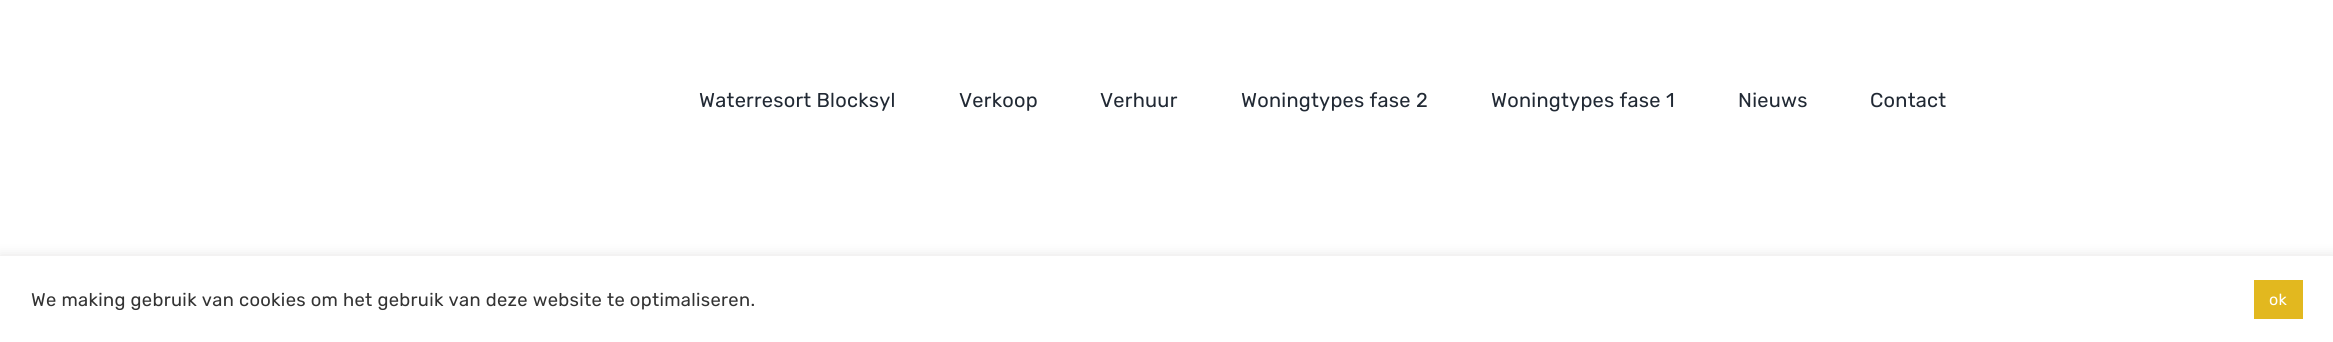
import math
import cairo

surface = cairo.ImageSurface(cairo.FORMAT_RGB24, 2333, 342)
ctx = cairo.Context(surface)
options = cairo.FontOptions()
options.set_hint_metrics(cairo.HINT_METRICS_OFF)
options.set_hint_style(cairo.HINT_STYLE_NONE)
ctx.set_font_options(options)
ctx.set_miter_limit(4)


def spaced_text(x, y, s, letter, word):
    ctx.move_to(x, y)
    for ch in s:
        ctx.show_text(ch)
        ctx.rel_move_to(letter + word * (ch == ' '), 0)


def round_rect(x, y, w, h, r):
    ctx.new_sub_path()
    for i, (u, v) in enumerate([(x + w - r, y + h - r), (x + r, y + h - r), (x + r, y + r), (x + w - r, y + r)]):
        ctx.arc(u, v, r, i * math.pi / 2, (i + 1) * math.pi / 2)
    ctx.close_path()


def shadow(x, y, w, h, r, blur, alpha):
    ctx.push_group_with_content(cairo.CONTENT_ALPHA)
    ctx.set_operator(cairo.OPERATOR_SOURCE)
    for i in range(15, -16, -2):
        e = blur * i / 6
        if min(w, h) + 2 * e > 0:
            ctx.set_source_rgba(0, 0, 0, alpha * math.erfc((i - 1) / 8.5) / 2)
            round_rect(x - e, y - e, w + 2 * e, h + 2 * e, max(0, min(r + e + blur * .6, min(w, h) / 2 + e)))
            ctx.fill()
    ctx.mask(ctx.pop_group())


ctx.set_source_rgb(1, 1, 1)
ctx.paint()
ctx.select_font_face("Rubik")
ctx.set_font_size(20)
ctx.set_source_rgb(0.129, 0.161, 0.204)
spaced_text(699, 107, "Waterresort Blocksyl", 0.25, 0)
spaced_text(959, 107, "Verkoop", 0.25, 0)
spaced_text(1100, 107, "Verhuur", 0.25, 0)
spaced_text(1241, 107, "Woningtypes fase 2", 0.25, 0)
spaced_text(1491, 107, "Woningtypes fase 1", 0.25, 0)
spaced_text(1738, 107, "Nieuws", 0.25, 0)
spaced_text(1870, 107, "Contact", 0.25, 0)
ctx.set_source_rgb(0.675, 0.671, 0.671)
shadow(0, 255, 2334, 86, 0, 6, 0.3)
ctx.set_source_rgb(1, 1, 1)
ctx.rectangle(0, 256, 2333, 86)
ctx.fill()
ctx.set_font_size(18.35)
ctx.set_source_rgb(0.2, 0.2, 0.2)
spaced_text(31, 306, "We making gebruik van cookies om het gebruik van deze website te optimaliseren.", 0.32, 0)
ctx.set_source_rgb(0.886, 0.722, 0.122)
ctx.rectangle(2254, 280, 49, 39)
ctx.fill()
ctx.set_font_size(16)
ctx.set_source_rgb(1, 1, 1)
spaced_text(2269, 305, "ok", 0.32, 0)
surface.write_to_png("page.png")
